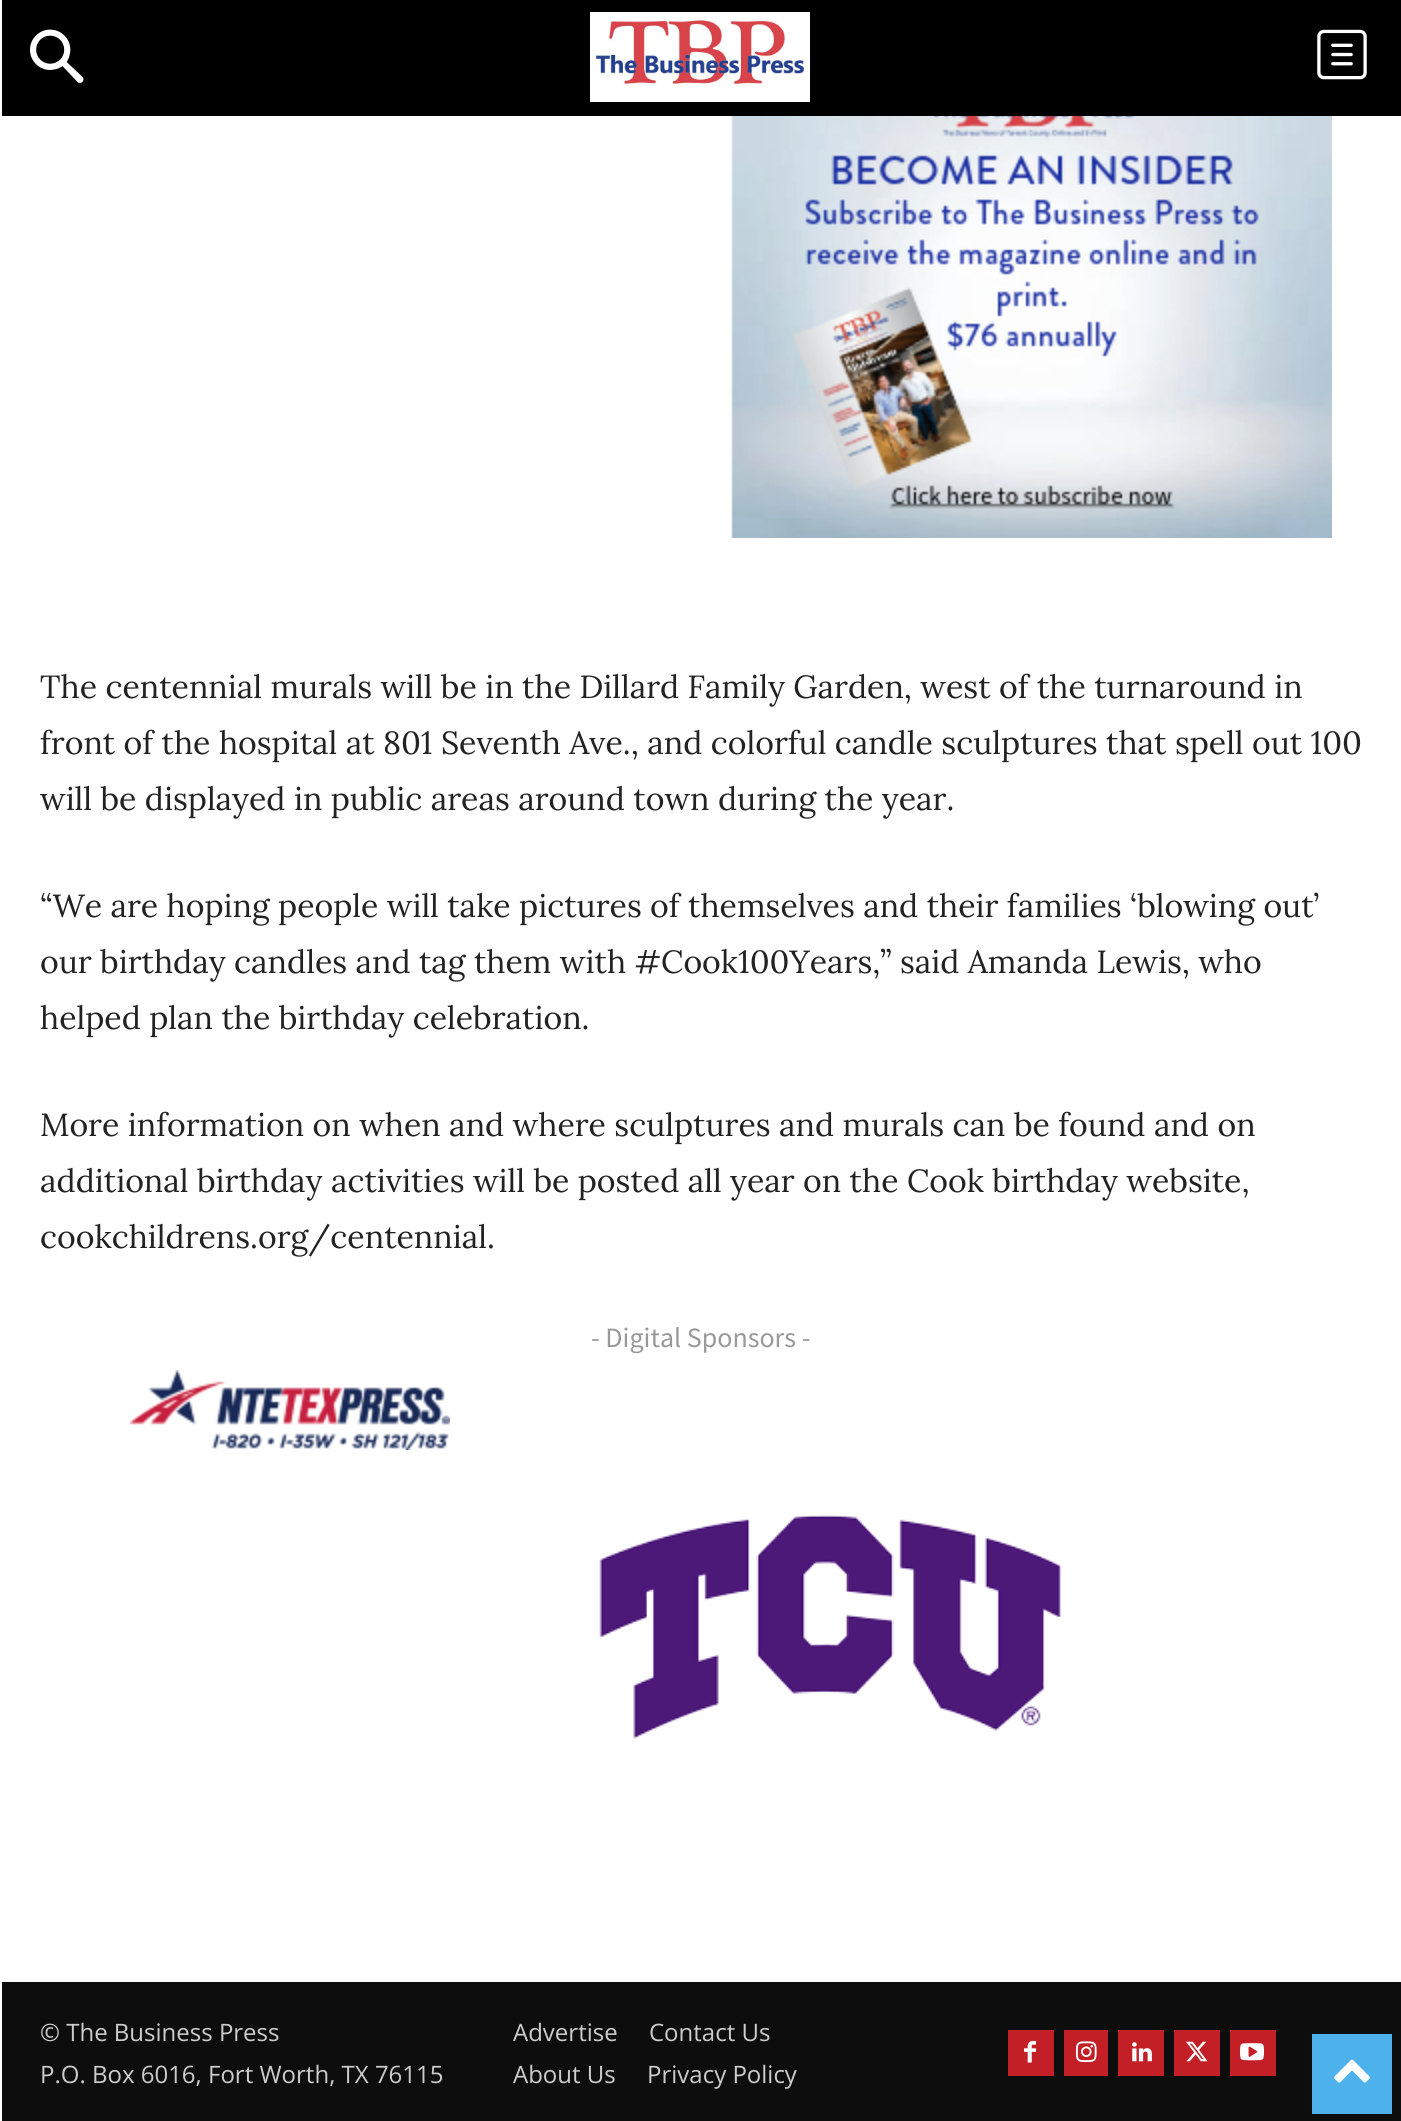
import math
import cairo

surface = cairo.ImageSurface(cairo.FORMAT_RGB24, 1401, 2121)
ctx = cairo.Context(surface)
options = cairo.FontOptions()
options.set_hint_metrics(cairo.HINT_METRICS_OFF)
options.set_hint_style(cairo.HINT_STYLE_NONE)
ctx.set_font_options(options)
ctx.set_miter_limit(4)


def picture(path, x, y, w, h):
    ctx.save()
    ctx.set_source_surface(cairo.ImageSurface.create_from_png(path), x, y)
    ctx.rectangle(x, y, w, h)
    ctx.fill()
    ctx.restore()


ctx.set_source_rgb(1, 1, 1)
ctx.paint()
ctx.set_source_rgb(0, 0, 0)
ctx.rectangle(2, 0, 1399, 116)
ctx.fill()
picture("img1.png", 30, 29, 54, 54)
picture("img2.png", 590, 12, 220, 90)
picture("img3.png", 1317, 29, 50, 51)
picture("img4.png", 731, 116, 601, 422)
ctx.select_font_face("Lora")
ctx.set_font_size(32)
ctx.set_source_rgb(0.133, 0.133, 0.133)
ctx.move_to(40, 698)
ctx.show_text("The centennial murals will be in the Dillard Family Garden, west of the turnaround in")
ctx.move_to(40, 754)
ctx.show_text("front of the hospital at 801 Seventh Ave., and colorful candle sculptures that spell out 100")
ctx.move_to(40, 810)
ctx.show_text("will be displayed in public areas around town during the year.")
ctx.move_to(40, 917)
ctx.show_text("“We are hoping people will take pictures of themselves and their families ‘blowing out’")
ctx.move_to(40, 973)
ctx.show_text("our birthday candles and tag them with #Cook100Years,” said Amanda Lewis, who")
ctx.move_to(40, 1029)
ctx.show_text("helped plan the birthday celebration.")
ctx.move_to(40, 1136)
ctx.show_text("More information on when and where sculptures and murals can be found and on")
ctx.move_to(40, 1192)
ctx.show_text("additional birthday activities will be posted all year on the Cook birthday website,")
ctx.move_to(40, 1248)
ctx.show_text("cookchildrens.org/centennial.")
ctx.select_font_face("Source Sans Pro")
ctx.set_font_size(28)
ctx.set_source_rgb(0.6, 0.6, 0.6)
ctx.move_to(591, 1347)
ctx.show_text("- Digital Sponsors -")
picture("img5.png", 130, 1370, 320, 80)
picture("img6.png", 599, 1514, 462, 225)
ctx.set_source_rgb(0.051, 0.051, 0.051)
ctx.rectangle(2, 1982, 1399, 139)
ctx.fill()
ctx.select_font_face("Open Sans")
ctx.set_font_size(24)
ctx.set_source_rgb(0.8, 0.8, 0.8)
ctx.move_to(40, 2041)
ctx.show_text("© The Business Press")
ctx.move_to(40, 2083)
ctx.show_text("P.O. Box 6016, Fort Worth, TX 76115")
ctx.move_to(513, 2041)
ctx.show_text("Advertise")
ctx.move_to(649, 2041)
ctx.show_text("Contact Us")
ctx.move_to(513, 2083)
ctx.show_text("About Us")
ctx.move_to(647, 2083)
ctx.show_text("Privacy Policy")
ctx.set_source_rgb(0.761, 0.125, 0.149)
ctx.rectangle(1008, 2030, 46, 46)
ctx.fill()
picture("img7.png", 1024, 2040, 12, 23)
ctx.rectangle(1064, 2030, 44, 46)
ctx.fill()
picture("img8.png", 1076, 2041, 21, 21)
ctx.rectangle(1118, 2030, 46, 46)
ctx.fill()
picture("img9.png", 1132, 2042, 20, 20)
ctx.rectangle(1174, 2030, 46, 46)
ctx.fill()
picture("img10.png", 1186, 2041, 22, 21)
ctx.rectangle(1230, 2030, 46, 46)
ctx.fill()
picture("img11.png", 1240, 2043, 24, 18)
ctx.set_source_rgb(0.302, 0.698, 0.925)
ctx.rectangle(1312, 2034, 80, 80)
ctx.fill()
picture("img12.png", 1334, 2059, 36, 24)
surface.write_to_png("page.png")
